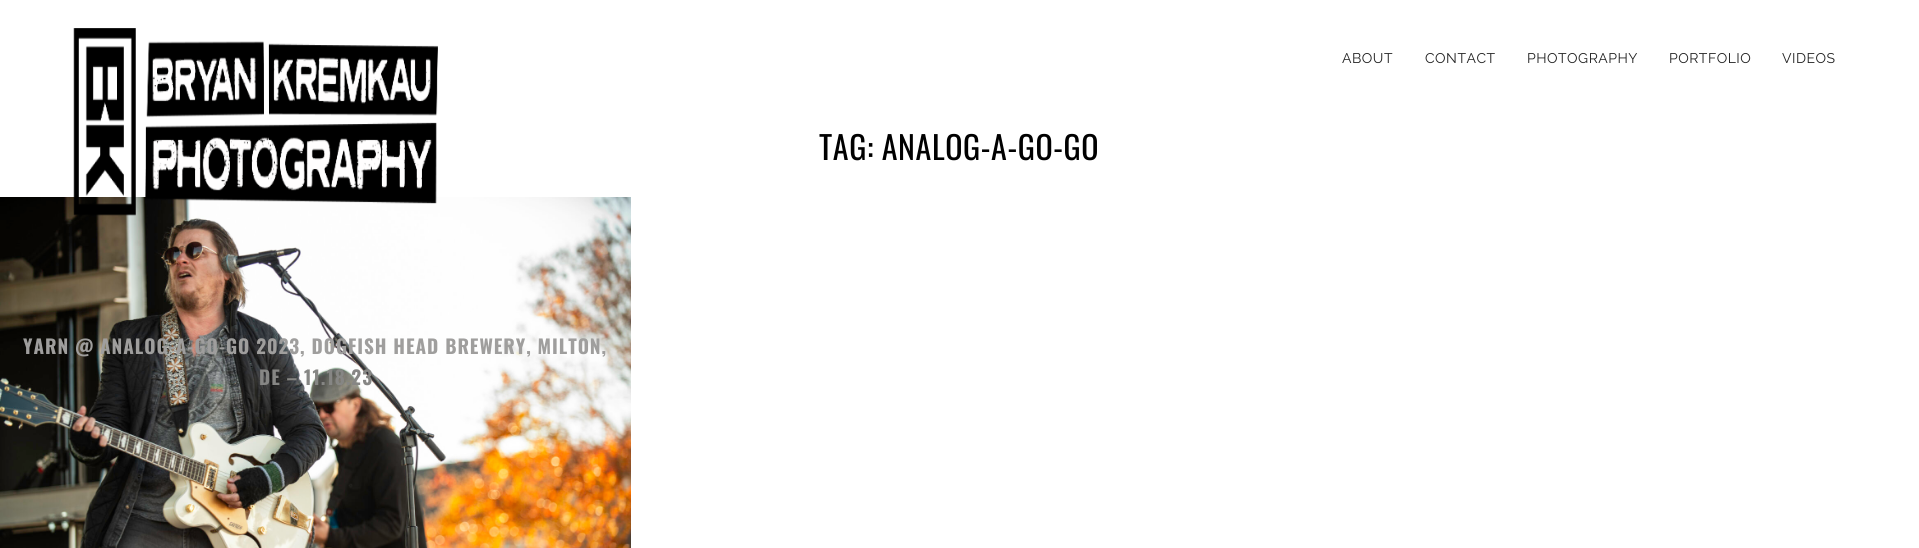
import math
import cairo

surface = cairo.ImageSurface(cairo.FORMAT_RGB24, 1919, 548)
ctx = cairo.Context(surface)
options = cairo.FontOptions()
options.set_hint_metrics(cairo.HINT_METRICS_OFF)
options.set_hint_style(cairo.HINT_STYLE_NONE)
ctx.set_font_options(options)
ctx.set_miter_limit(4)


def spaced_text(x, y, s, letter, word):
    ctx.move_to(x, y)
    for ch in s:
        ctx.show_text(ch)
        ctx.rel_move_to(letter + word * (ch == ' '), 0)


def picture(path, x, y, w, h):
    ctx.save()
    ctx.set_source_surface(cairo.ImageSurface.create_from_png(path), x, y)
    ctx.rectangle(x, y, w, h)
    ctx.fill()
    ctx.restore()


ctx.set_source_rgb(1, 1, 1)
ctx.paint()
picture("img2.png", 0, 197, 631, 351)
picture("img1.png", 73, 28, 365, 188)
ctx.select_font_face("Raleway")
ctx.set_font_size(14)
ctx.set_source_rgb(0.133, 0.133, 0.133)
spaced_text(1342, 63, "ABOUT", 0.5, 0)
spaced_text(1425, 63, "CONTACT", 0.5, 0)
spaced_text(1527, 63, "PHOTOGRAPHY", 0.5, 0)
spaced_text(1669, 63, "PORTFOLIO", 0.5, 0)
spaced_text(1782, 63, "VIDEOS", 0.5, 0)
ctx.select_font_face("Oswald")
ctx.set_font_size(32)
ctx.set_source_rgb(0, 0, 0)
spaced_text(819, 160, "TAG: ANALOG-A-GO-GO", 0.6, 0)
ctx.select_font_face("Oswald", cairo.FONT_SLANT_NORMAL, cairo.FONT_WEIGHT_BOLD)
ctx.set_font_size(19.2)
ctx.set_source_rgb(0.624, 0.62, 0.616)
spaced_text(23, 354, "YARN @ ANALOG-A-GO-GO 2023, DOGFISH HEAD BREWERY, MILTON,", 0.95, 0)
ctx.set_source_rgb(0.525, 0.525, 0.518)
spaced_text(259, 385, "DE – 11.18.23", 0.95, 0)
surface.write_to_png("page.png")
